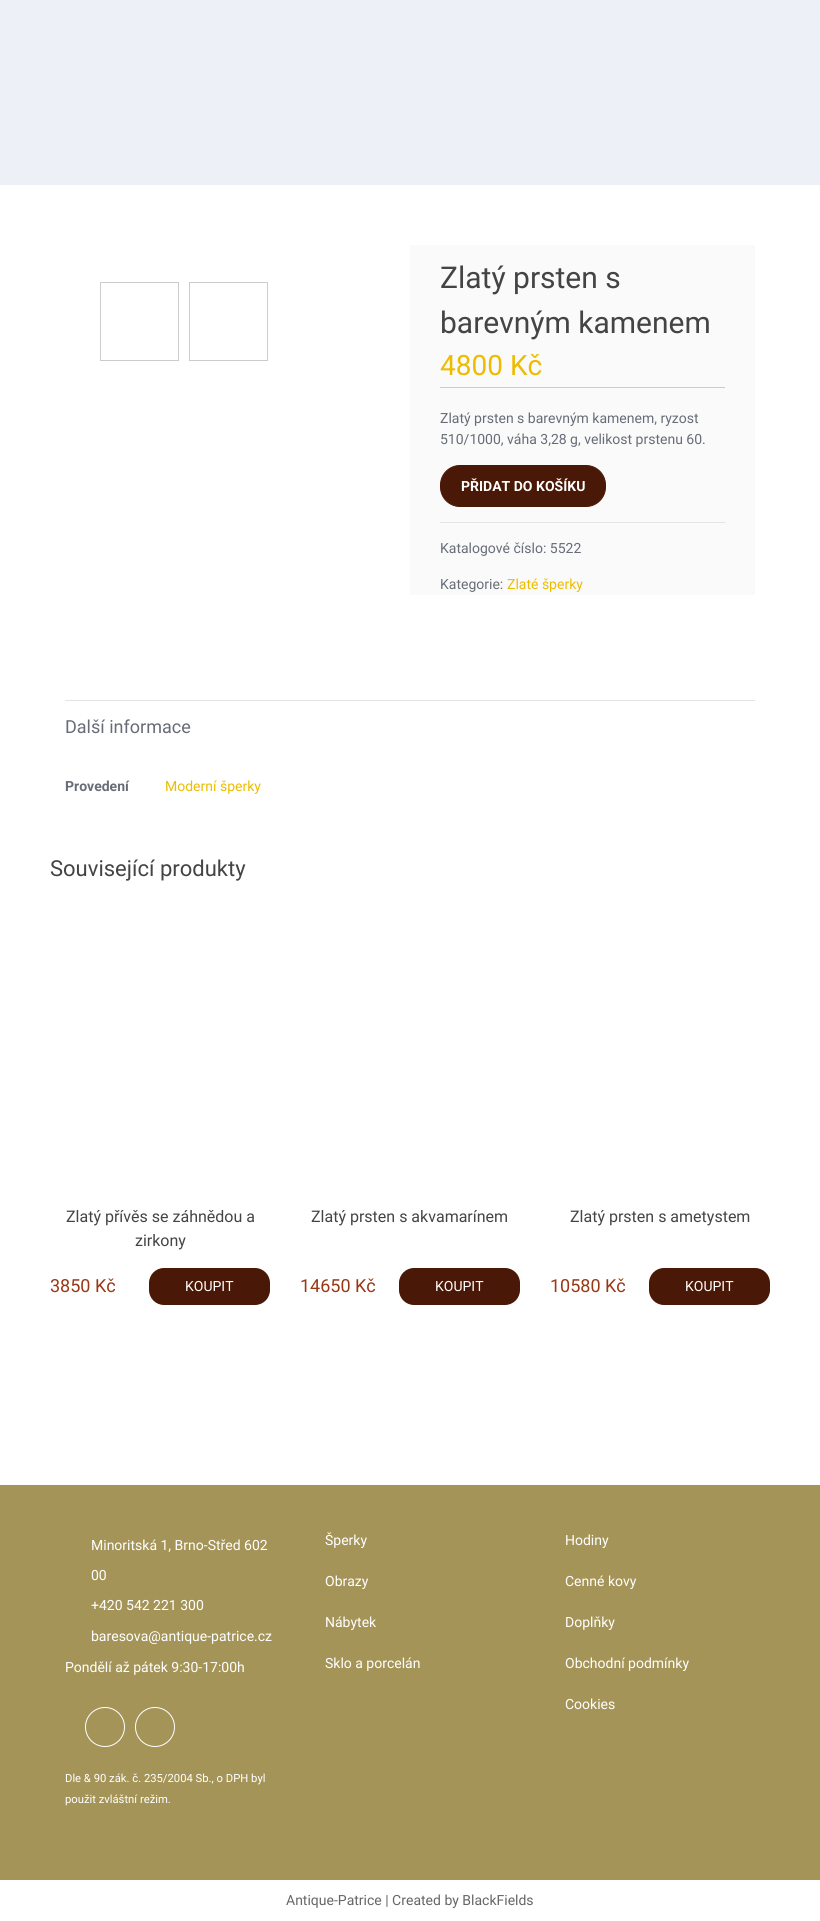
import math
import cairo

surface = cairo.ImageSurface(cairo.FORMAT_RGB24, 820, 1921)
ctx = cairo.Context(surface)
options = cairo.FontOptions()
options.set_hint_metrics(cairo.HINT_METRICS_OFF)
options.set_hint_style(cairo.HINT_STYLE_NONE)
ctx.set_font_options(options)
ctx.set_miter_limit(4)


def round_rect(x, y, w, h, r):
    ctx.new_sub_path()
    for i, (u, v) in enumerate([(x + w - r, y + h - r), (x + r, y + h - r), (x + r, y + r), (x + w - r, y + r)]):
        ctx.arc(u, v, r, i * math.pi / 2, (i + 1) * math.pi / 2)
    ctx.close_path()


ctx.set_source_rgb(1, 1, 1)
ctx.paint()
ctx.set_source_rgb(0.929, 0.941, 0.961)
ctx.rectangle(0, 0, 820, 185)
ctx.fill()
ctx.rectangle(100.5, 282.5, 78, 78)
ctx.set_source_rgb(0.8, 0.8, 0.8)
ctx.set_line_width(1)
ctx.stroke()
ctx.rectangle(189.5, 282.5, 78, 78)
ctx.stroke()
ctx.set_source_rgb(0.98, 0.98, 0.98)
ctx.rectangle(410, 245, 345, 350)
ctx.fill()
ctx.select_font_face("Roboto")
ctx.set_font_size(30)
ctx.set_source_rgb(0.267, 0.267, 0.267)
ctx.move_to(440, 288)
ctx.show_text("Zlatý prsten s")
ctx.move_to(440, 333)
ctx.show_text("barevným kamenem")
ctx.set_font_size(28)
ctx.set_source_rgb(0.929, 0.737, 0)
ctx.move_to(440, 375)
ctx.show_text("4800 Kč")
ctx.set_source_rgb(0.8, 0.8, 0.8)
ctx.rectangle(440, 387, 285, 1)
ctx.fill()
ctx.set_font_size(14)
ctx.set_source_rgb(0.404, 0.424, 0.467)
ctx.move_to(440, 423)
ctx.show_text("Zlatý prsten s barevným kamenem, ryzost")
ctx.move_to(440, 444)
ctx.show_text("510/1000, váha 3,28 g, velikost prstenu 60.")
ctx.set_source_rgb(0.29, 0.094, 0.024)
round_rect(440.5, 465.5, 165, 41, 19.5)
ctx.fill_preserve()
ctx.stroke()
ctx.select_font_face("Roboto", cairo.FONT_SLANT_NORMAL, cairo.FONT_WEIGHT_BOLD)
ctx.set_source_rgb(1, 1, 1)
ctx.move_to(461, 491)
ctx.show_text("PŘIDAT DO KOŠÍKU")
ctx.set_source_rgb(0.894, 0.894, 0.894)
ctx.rectangle(440, 522, 285, 1)
ctx.fill()
ctx.select_font_face("Roboto")
ctx.set_source_rgb(0.404, 0.424, 0.467)
ctx.move_to(440, 553)
ctx.show_text("Katalogové číslo: 5522")
ctx.move_to(440, 589)
ctx.show_text("Kategorie:")
ctx.set_source_rgb(0.929, 0.737, 0)
ctx.move_to(507, 589)
ctx.show_text("Zlaté šperky")
ctx.set_source_rgb(0.894, 0.894, 0.894)
ctx.rectangle(65, 700, 690, 1)
ctx.fill()
ctx.set_font_size(18)
ctx.set_source_rgb(0.404, 0.424, 0.467)
ctx.move_to(65, 733)
ctx.show_text("Další informace")
ctx.select_font_face("Roboto", cairo.FONT_SLANT_NORMAL, cairo.FONT_WEIGHT_BOLD)
ctx.set_font_size(14)
ctx.move_to(65, 791)
ctx.show_text("Provedení")
ctx.select_font_face("Roboto")
ctx.set_source_rgb(0.929, 0.737, 0)
ctx.move_to(165, 791)
ctx.show_text("Moderní šperky")
ctx.set_font_size(22)
ctx.set_source_rgb(0.267, 0.267, 0.267)
ctx.move_to(50, 876)
ctx.show_text("Související produkty")
ctx.set_font_size(16)
ctx.move_to(66, 1222)
ctx.show_text("Zlatý přívěs se záhnědou a")
ctx.move_to(135, 1246)
ctx.show_text("zirkony")
ctx.set_font_size(18)
ctx.set_source_rgb(0.6, 0.22, 0.086)
ctx.move_to(50, 1292)
ctx.show_text("3850 Kč")
ctx.set_source_rgb(0.29, 0.094, 0.024)
round_rect(149, 1268, 121, 37, 15)
ctx.fill()
ctx.set_font_size(14)
ctx.set_source_rgb(1, 1, 1)
ctx.move_to(185, 1291)
ctx.show_text("KOUPIT")
ctx.set_font_size(16)
ctx.set_source_rgb(0.267, 0.267, 0.267)
ctx.move_to(311, 1222)
ctx.show_text("Zlatý prsten s akvamarínem")
ctx.set_font_size(18)
ctx.set_source_rgb(0.6, 0.22, 0.086)
ctx.move_to(300, 1292)
ctx.show_text("14650 Kč")
ctx.set_source_rgb(0.29, 0.094, 0.024)
round_rect(399, 1268, 121, 37, 15)
ctx.fill()
ctx.set_font_size(14)
ctx.set_source_rgb(1, 1, 1)
ctx.move_to(435, 1291)
ctx.show_text("KOUPIT")
ctx.set_font_size(16)
ctx.set_source_rgb(0.267, 0.267, 0.267)
ctx.move_to(570, 1222)
ctx.show_text("Zlatý prsten s ametystem")
ctx.set_font_size(18)
ctx.set_source_rgb(0.6, 0.22, 0.086)
ctx.move_to(550, 1292)
ctx.show_text("10580 Kč")
ctx.set_source_rgb(0.29, 0.094, 0.024)
round_rect(649, 1268, 121, 37, 15)
ctx.fill()
ctx.set_font_size(14)
ctx.set_source_rgb(1, 1, 1)
ctx.move_to(685, 1291)
ctx.show_text("KOUPIT")
ctx.set_source_rgb(0.647, 0.58, 0.345)
ctx.rectangle(0, 1485, 820, 395)
ctx.fill()
ctx.set_source_rgb(1, 1, 1)
ctx.move_to(91, 1550)
ctx.show_text("Minoritská 1, Brno-Střed 602")
ctx.move_to(91, 1580)
ctx.show_text("00")
ctx.move_to(91, 1610)
ctx.show_text("+420 542 221 300")
ctx.move_to(91, 1641)
ctx.show_text("baresova@antique-patrice.cz")
ctx.move_to(65, 1672)
ctx.show_text("Pondělí až pátek 9:30-17:00h")
ctx.new_path()
ctx.arc(105, 1727, 19.5, 0, 2 * math.pi)
ctx.stroke()
ctx.arc(155, 1727, 19.5, 0, 2 * math.pi)
ctx.stroke()
ctx.set_font_size(11.25)
ctx.move_to(65, 1782)
ctx.show_text("Dle & 90 zák. č. 235/2004 Sb., o DPH byl")
ctx.move_to(65, 1803)
ctx.show_text("použit zvláštní režim.")
ctx.set_font_size(14)
ctx.move_to(325, 1545)
ctx.show_text("Šperky")
ctx.move_to(325, 1586)
ctx.show_text("Obrazy")
ctx.move_to(325, 1627)
ctx.show_text("Nábytek")
ctx.move_to(325, 1668)
ctx.show_text("Sklo a porcelán")
ctx.move_to(565, 1545)
ctx.show_text("Hodiny")
ctx.move_to(565, 1586)
ctx.show_text("Cenné kovy")
ctx.move_to(565, 1627)
ctx.show_text("Doplňky")
ctx.move_to(565, 1668)
ctx.show_text("Obchodní podmínky")
ctx.move_to(565, 1709)
ctx.show_text("Cookies")
ctx.set_source_rgb(0.4, 0.4, 0.4)
ctx.move_to(286, 1905)
ctx.show_text("Antique-Patrice | Created by BlackFields")
surface.write_to_png("page.png")
